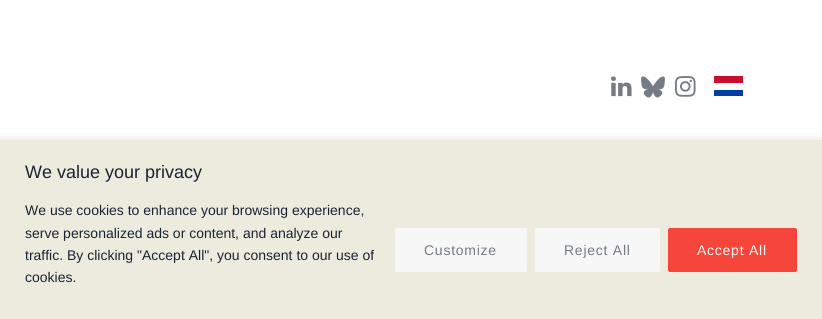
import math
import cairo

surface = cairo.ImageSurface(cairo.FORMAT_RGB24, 822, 319)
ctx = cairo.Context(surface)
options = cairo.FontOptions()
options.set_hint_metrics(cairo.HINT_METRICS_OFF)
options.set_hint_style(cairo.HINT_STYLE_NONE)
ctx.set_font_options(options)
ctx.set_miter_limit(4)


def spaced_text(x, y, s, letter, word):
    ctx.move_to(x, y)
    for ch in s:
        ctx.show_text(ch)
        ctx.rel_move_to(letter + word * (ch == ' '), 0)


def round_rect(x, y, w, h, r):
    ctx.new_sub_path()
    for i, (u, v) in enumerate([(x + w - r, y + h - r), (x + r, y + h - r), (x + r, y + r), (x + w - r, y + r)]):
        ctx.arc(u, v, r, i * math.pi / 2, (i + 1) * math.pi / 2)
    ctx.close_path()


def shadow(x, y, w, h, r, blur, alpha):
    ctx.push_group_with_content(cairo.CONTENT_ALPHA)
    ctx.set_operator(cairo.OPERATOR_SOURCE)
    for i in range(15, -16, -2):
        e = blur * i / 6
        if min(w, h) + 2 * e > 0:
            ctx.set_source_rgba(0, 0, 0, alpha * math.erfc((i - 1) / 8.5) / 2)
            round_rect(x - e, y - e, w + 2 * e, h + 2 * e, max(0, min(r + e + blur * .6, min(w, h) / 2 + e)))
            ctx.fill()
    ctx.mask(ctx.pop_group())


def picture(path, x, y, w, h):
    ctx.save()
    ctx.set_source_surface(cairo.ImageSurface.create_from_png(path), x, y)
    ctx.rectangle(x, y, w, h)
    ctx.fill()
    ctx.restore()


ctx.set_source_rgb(1, 1, 1)
ctx.paint()
picture("img1.png", 611, 76, 21, 21)
picture("img2.png", 641, 76, 24, 22)
picture("img3.png", 675, 76, 21, 21)
ctx.set_source_rgb(0, 0.239, 0.647)
ctx.rectangle(714, 90, 29, 6)
ctx.fill()
ctx.set_source_rgb(0.784, 0.063, 0.18)
ctx.rectangle(714, 76, 29, 7)
ctx.fill()
ctx.set_source_rgb(0.675, 0.671, 0.671)
shadow(0, 139, 822, 179, 0, 5, 0.3)
ctx.set_source_rgb(0.925, 0.918, 0.871)
ctx.rectangle(0, 140, 822, 179)
ctx.fill()
ctx.select_font_face("Liberation Sans")
ctx.set_font_size(18)
ctx.set_source_rgb(0.098, 0.137, 0.196)
ctx.move_to(25, 178)
ctx.show_text("We value your privacy")
ctx.set_font_size(14)
ctx.move_to(25, 215)
ctx.show_text("We use cookies to enhance your browsing experience,")
ctx.move_to(25, 238)
ctx.show_text("serve personalized ads or content, and analyze our")
ctx.move_to(25, 260)
ctx.show_text("traffic. By clicking \"Accept All\", you consent to our use of")
ctx.move_to(25, 282)
ctx.show_text("cookies.")
ctx.set_source_rgb(0.965, 0.965, 0.965)
round_rect(396, 229, 130, 42, 1)
ctx.fill_preserve()
ctx.stroke()
ctx.set_source_rgb(0.459, 0.482, 0.518)
spaced_text(424, 255, "Customize", 0.75, 0)
ctx.set_source_rgb(0.965, 0.965, 0.965)
round_rect(536, 229, 123, 42, 1)
ctx.fill_preserve()
ctx.stroke()
ctx.set_source_rgb(0.459, 0.482, 0.518)
spaced_text(564, 255, "Reject All", 0.75, 0)
ctx.set_source_rgb(0.961, 0.275, 0.235)
round_rect(669, 229, 127, 42, 1)
ctx.fill_preserve()
ctx.stroke()
ctx.set_source_rgb(0.965, 0.965, 0.965)
spaced_text(697, 255, "Accept All", 0.75, 0)
surface.write_to_png("page.png")
